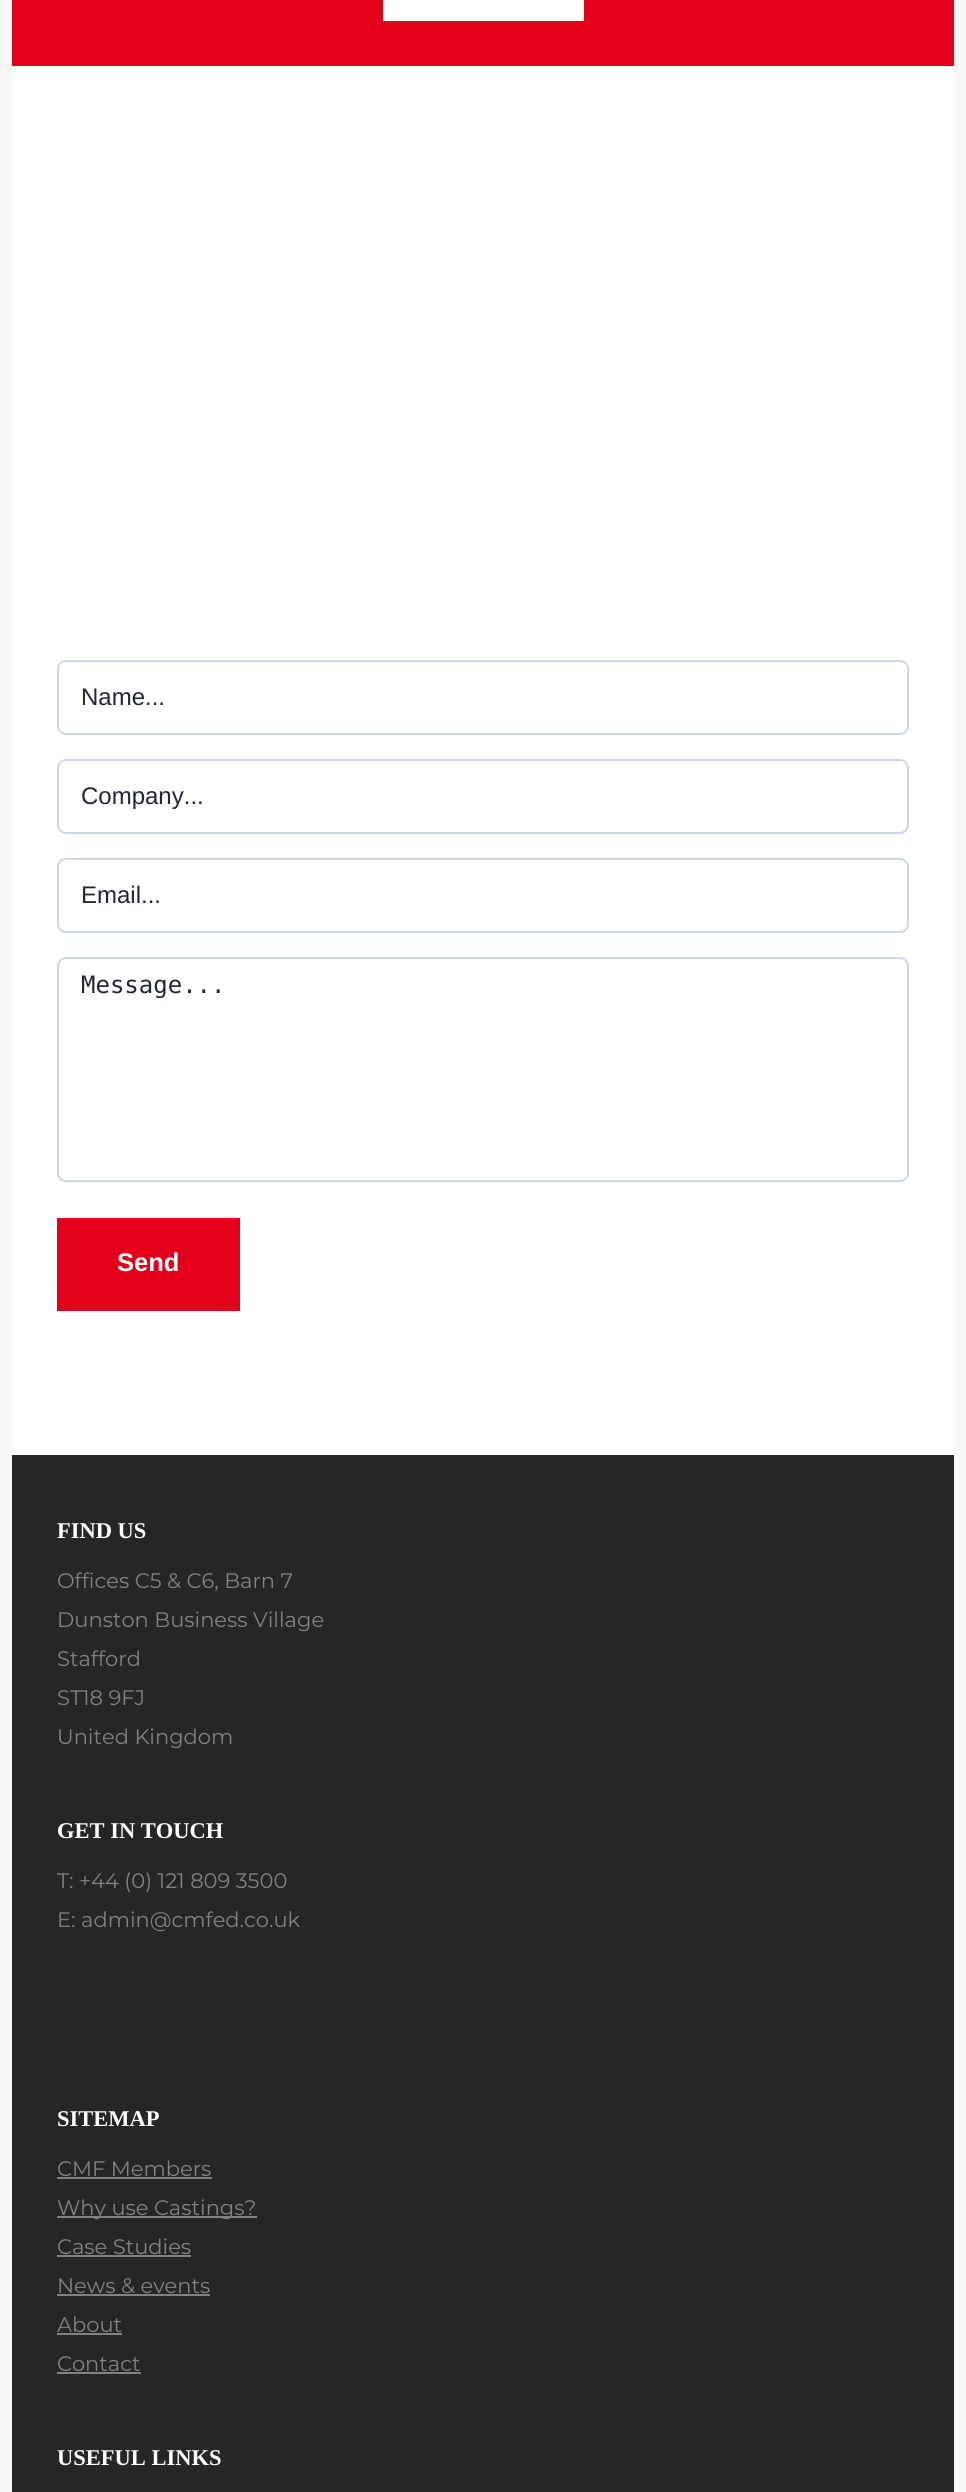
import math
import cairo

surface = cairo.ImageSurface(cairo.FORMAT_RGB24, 966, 2492)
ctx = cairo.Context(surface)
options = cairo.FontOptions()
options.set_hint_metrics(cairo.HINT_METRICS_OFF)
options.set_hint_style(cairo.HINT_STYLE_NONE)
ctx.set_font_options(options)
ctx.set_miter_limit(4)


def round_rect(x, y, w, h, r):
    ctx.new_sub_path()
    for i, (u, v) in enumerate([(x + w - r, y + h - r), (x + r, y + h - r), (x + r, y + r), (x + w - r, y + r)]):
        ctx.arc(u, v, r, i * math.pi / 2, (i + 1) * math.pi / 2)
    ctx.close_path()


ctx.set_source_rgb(0.965, 0.965, 0.965)
ctx.paint()
ctx.set_source_rgb(1, 1, 1)
ctx.rectangle(12, 66, 942, 1389)
ctx.fill()
ctx.set_source_rgb(0.886, 0, 0.102)
ctx.rectangle(12, 0, 942, 66)
ctx.fill()
ctx.set_source_rgb(1, 1, 1)
ctx.rectangle(383, 0, 201, 21)
ctx.fill()
round_rect(58, 661, 850, 73, 8)
ctx.set_source_rgb(0.808, 0.839, 0.918)
ctx.stroke()
ctx.select_font_face("Liberation Sans")
ctx.set_font_size(24)
ctx.set_source_rgb(0.133, 0.145, 0.239)
ctx.move_to(81, 705)
ctx.show_text("Name...")
round_rect(58, 760, 850, 73, 8)
ctx.set_source_rgb(0.808, 0.839, 0.918)
ctx.stroke()
ctx.set_source_rgb(0.133, 0.145, 0.239)
ctx.move_to(81, 804)
ctx.show_text("Company...")
round_rect(58, 859, 850, 73, 8)
ctx.set_source_rgb(0.808, 0.839, 0.918)
ctx.stroke()
ctx.set_source_rgb(0.133, 0.145, 0.239)
ctx.move_to(81, 903)
ctx.show_text("Email...")
round_rect(58, 958, 850, 223, 8)
ctx.set_source_rgb(0.808, 0.839, 0.918)
ctx.stroke()
ctx.select_font_face("DejaVu Sans Mono")
ctx.set_source_rgb(0.133, 0.145, 0.239)
ctx.move_to(81, 993)
ctx.show_text("Message...")
ctx.set_source_rgb(0.886, 0, 0.102)
ctx.rectangle(57, 1218, 183, 93)
ctx.fill()
ctx.select_font_face("Liberation Sans", cairo.FONT_SLANT_NORMAL, cairo.FONT_WEIGHT_BOLD)
ctx.set_font_size(25.5)
ctx.set_source_rgb(1, 1, 1)
ctx.move_to(117, 1271)
ctx.show_text("Send")
ctx.set_source_rgb(0.149, 0.149, 0.149)
ctx.rectangle(12, 1455, 942, 1037)
ctx.fill()
ctx.select_font_face("Liberation Serif", cairo.FONT_SLANT_NORMAL, cairo.FONT_WEIGHT_BOLD)
ctx.set_font_size(22.5)
ctx.set_source_rgb(1, 1, 1)
ctx.move_to(57, 1538)
ctx.show_text("FIND US")
ctx.select_font_face("Montserrat")
ctx.set_font_size(21)
ctx.set_source_rgb(0.506, 0.506, 0.506)
ctx.move_to(57, 1588)
ctx.show_text("Offices C5 & C6, Barn 7")
ctx.move_to(57, 1627)
ctx.show_text("Dunston Business Village")
ctx.move_to(57, 1666)
ctx.show_text("Stafford")
ctx.move_to(57, 1705)
ctx.show_text("ST18 9FJ")
ctx.move_to(57, 1744)
ctx.show_text("United Kingdom")
ctx.select_font_face("Liberation Serif", cairo.FONT_SLANT_NORMAL, cairo.FONT_WEIGHT_BOLD)
ctx.set_font_size(22.5)
ctx.set_source_rgb(1, 1, 1)
ctx.move_to(57, 1838)
ctx.show_text("GET IN TOUCH")
ctx.select_font_face("Montserrat")
ctx.set_font_size(21)
ctx.set_source_rgb(0.506, 0.506, 0.506)
ctx.move_to(57, 1888)
ctx.show_text("T: +44 (0) 121 809 3500")
ctx.move_to(57, 1927)
ctx.show_text("E: admin@cmfed.co.uk")
ctx.select_font_face("Liberation Serif", cairo.FONT_SLANT_NORMAL, cairo.FONT_WEIGHT_BOLD)
ctx.set_font_size(22.5)
ctx.set_source_rgb(1, 1, 1)
ctx.move_to(57, 2126)
ctx.show_text("SITEMAP")
ctx.select_font_face("Montserrat")
ctx.set_font_size(21)
ctx.set_source_rgb(0.506, 0.506, 0.506)
ctx.move_to(57, 2176)
ctx.show_text("CMF Members")
ctx.rectangle(57, 2177, 155, 2)
ctx.fill()
ctx.rectangle(57, 2216, 200, 2)
ctx.fill()
ctx.move_to(57, 2215)
ctx.show_text("Why use Castings?")
ctx.move_to(57, 2254)
ctx.show_text("Case Studies")
ctx.rectangle(57, 2255, 134, 2)
ctx.fill()
ctx.move_to(57, 2293)
ctx.show_text("News & events")
ctx.rectangle(57, 2294, 153, 2)
ctx.fill()
ctx.move_to(57, 2332)
ctx.show_text("About")
ctx.rectangle(57, 2333, 65, 2)
ctx.fill()
ctx.move_to(57, 2371)
ctx.show_text("Contact")
ctx.rectangle(57, 2372, 84, 2)
ctx.fill()
ctx.select_font_face("Liberation Serif", cairo.FONT_SLANT_NORMAL, cairo.FONT_WEIGHT_BOLD)
ctx.set_font_size(22.5)
ctx.set_source_rgb(1, 1, 1)
ctx.move_to(57, 2465)
ctx.show_text("USEFUL LINKS")
surface.write_to_png("page.png")
